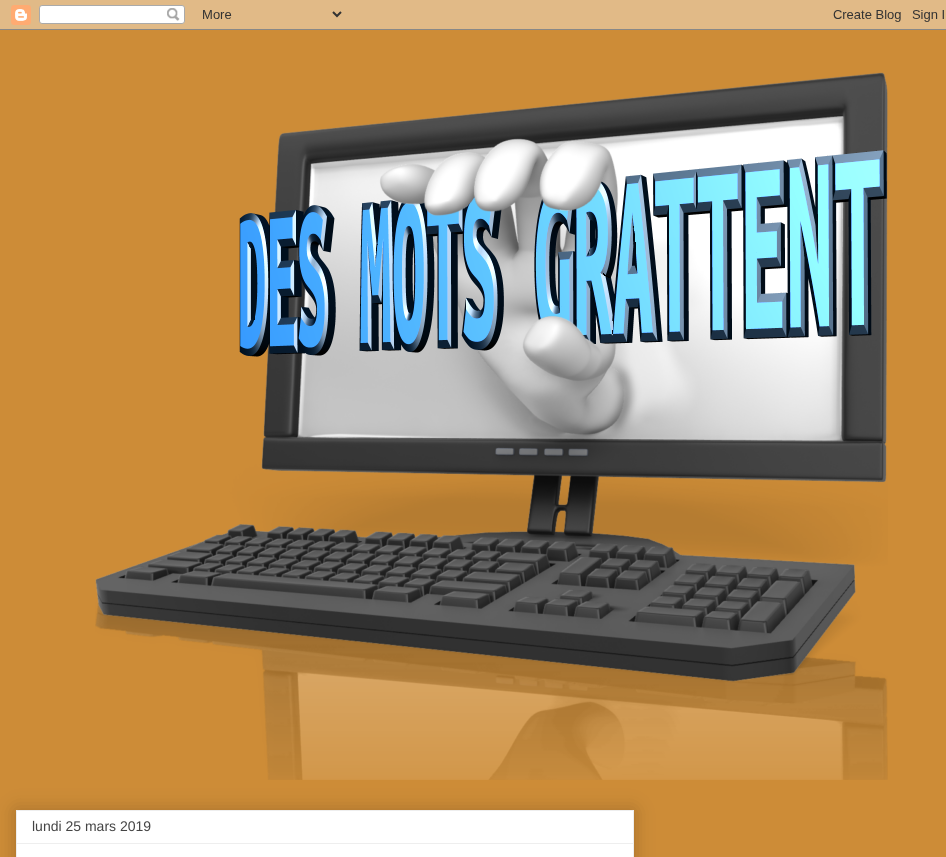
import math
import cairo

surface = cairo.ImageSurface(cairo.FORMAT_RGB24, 946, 857)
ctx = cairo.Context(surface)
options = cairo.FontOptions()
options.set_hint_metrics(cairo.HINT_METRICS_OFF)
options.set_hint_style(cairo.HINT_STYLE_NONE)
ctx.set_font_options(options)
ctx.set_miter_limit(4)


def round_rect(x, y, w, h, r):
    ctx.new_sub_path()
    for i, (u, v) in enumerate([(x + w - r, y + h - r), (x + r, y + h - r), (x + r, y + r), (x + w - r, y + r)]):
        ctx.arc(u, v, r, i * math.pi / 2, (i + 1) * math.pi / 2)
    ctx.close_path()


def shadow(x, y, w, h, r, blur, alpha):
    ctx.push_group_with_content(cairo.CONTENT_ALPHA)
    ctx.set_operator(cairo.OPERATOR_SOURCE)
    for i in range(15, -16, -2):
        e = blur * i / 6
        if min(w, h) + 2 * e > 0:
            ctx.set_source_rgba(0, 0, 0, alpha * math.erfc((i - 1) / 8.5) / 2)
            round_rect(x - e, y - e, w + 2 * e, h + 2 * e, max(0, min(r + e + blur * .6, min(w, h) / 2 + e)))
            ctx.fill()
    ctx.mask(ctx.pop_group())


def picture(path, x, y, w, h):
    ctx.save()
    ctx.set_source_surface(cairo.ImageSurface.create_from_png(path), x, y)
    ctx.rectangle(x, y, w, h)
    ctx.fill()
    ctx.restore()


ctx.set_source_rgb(0.804, 0.549, 0.216)
ctx.paint()
picture("img1.png", 0, 0, 946, 30)
picture("img2.png", 95, 72, 793, 708)
ctx.set_source_rgb(0, 0, 0)
shadow(16, 810, 618, 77, 0, 10, 0.2)
ctx.set_source_rgb(1, 1, 1)
ctx.rectangle(16.5, 810.5, 617, 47)
ctx.fill_preserve()
ctx.set_source_rgb(0.933, 0.933, 0.933)
ctx.set_line_width(1)
ctx.stroke()
ctx.select_font_face("Liberation Sans")
ctx.set_font_size(14)
ctx.set_source_rgb(0.267, 0.267, 0.267)
ctx.move_to(32, 831)
ctx.show_text("lundi 25 mars 2019")
ctx.set_source_rgb(0.933, 0.933, 0.933)
ctx.rectangle(17, 843, 616, 1)
ctx.fill()
surface.write_to_png("page.png")
